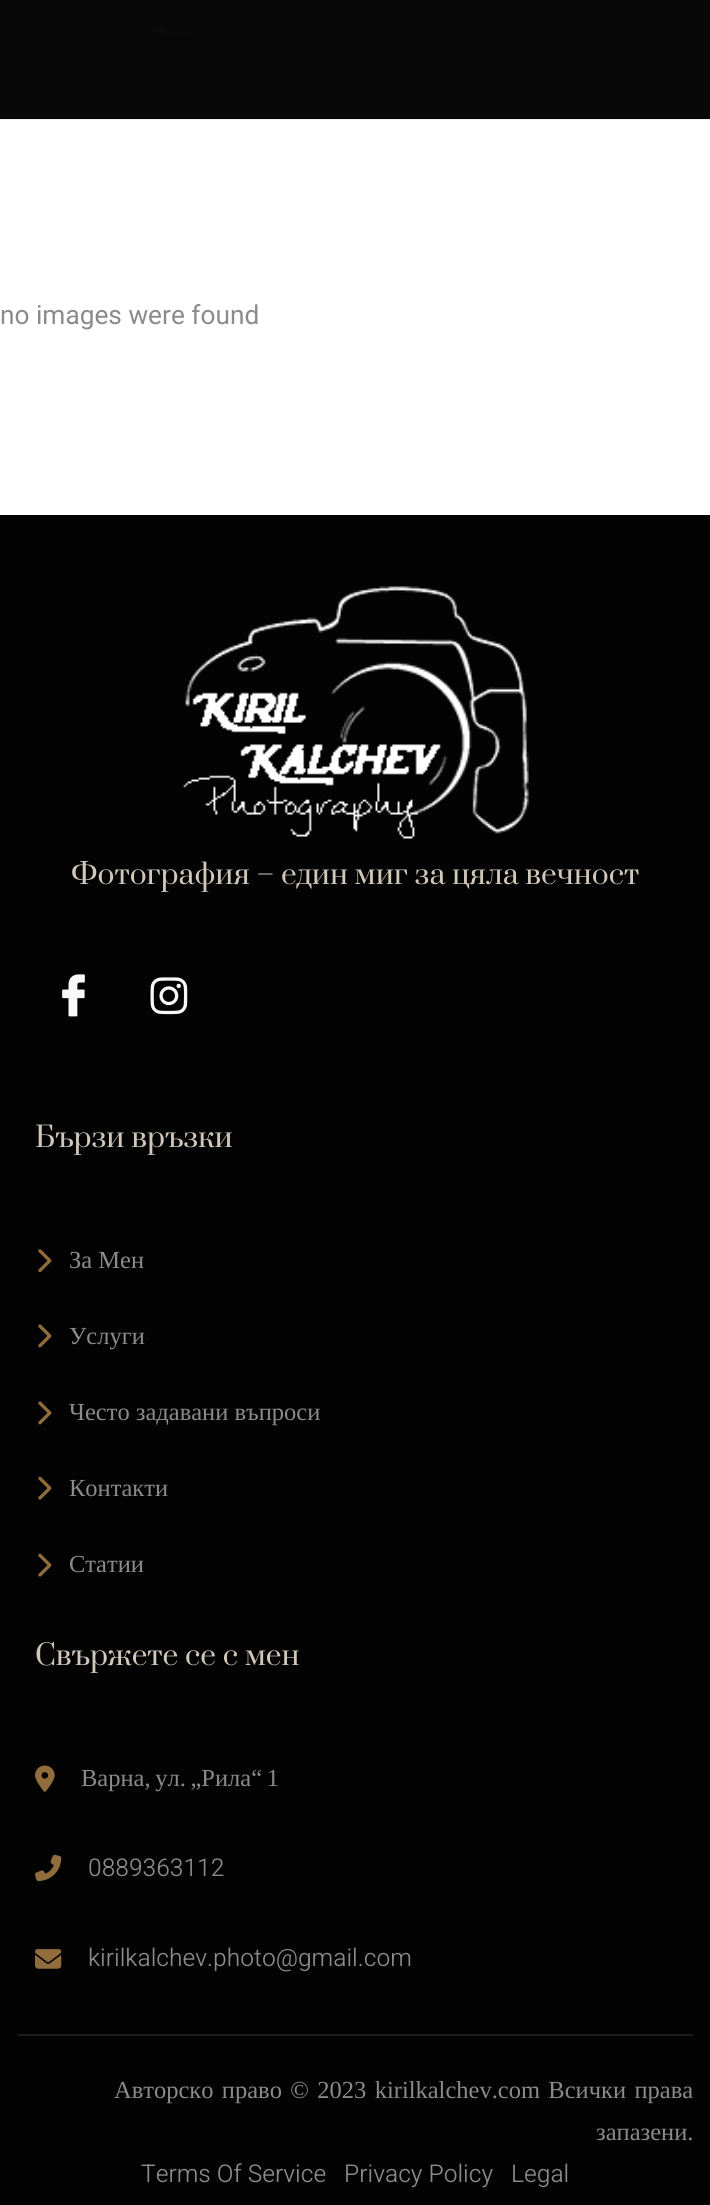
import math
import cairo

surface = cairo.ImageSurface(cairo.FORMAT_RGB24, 710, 2205)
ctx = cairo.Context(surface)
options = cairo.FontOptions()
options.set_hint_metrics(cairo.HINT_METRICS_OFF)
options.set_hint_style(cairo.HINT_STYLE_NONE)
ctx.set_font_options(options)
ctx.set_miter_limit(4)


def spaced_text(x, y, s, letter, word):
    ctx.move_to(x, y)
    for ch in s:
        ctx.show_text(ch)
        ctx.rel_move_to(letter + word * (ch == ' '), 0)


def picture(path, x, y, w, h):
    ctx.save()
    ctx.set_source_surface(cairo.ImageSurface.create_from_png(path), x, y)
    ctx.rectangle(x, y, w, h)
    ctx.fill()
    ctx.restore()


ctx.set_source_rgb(1, 1, 1)
ctx.paint()
picture("img1.png", 0, 0, 710, 120)
ctx.select_font_face("Roboto")
ctx.set_font_size(26.25)
ctx.set_source_rgb(0.545, 0.545, 0.545)
ctx.move_to(0, 324)
ctx.show_text("no images were found")
ctx.set_source_rgb(0.012, 0.012, 0.012)
ctx.rectangle(0, 515, 710, 1690)
ctx.fill()
picture("img2.png", 183, 586, 346, 253)
ctx.select_font_face("Prata")
ctx.set_font_size(28)
ctx.set_source_rgb(0.82, 0.784, 0.733)
ctx.move_to(71, 884)
ctx.show_text("Фотография – един миг за цяла вечност")
picture("img3.png", 62, 974, 23, 43)
picture("img4.png", 150, 977, 38, 38)
ctx.move_to(35, 1147)
ctx.show_text("Бързи връзки")
picture("img5.png", 38, 1249, 14, 24)
ctx.select_font_face("Liberation Serif")
ctx.set_font_size(24.5)
ctx.set_source_rgb(0.545, 0.545, 0.545)
ctx.move_to(69, 1268)
ctx.show_text("За Мен")
picture("img6.png", 38, 1324, 14, 24)
ctx.move_to(69, 1344)
ctx.show_text("Услуги")
picture("img6.png", 38, 1401, 14, 24)
ctx.move_to(69, 1420)
ctx.show_text("Често задавани въпроси")
picture("img7.png", 38, 1476, 14, 24)
ctx.move_to(69, 1496)
ctx.show_text("Контакти")
picture("img7.png", 38, 1553, 14, 24)
ctx.move_to(69, 1572)
ctx.show_text("Статии")
ctx.select_font_face("Prata")
ctx.set_font_size(28)
ctx.set_source_rgb(0.82, 0.784, 0.733)
ctx.move_to(35, 1665)
ctx.show_text("Свържете се с мен")
picture("img8.png", 35, 1765, 20, 27)
ctx.select_font_face("Liberation Serif")
ctx.set_font_size(24.5)
ctx.set_source_rgb(0.545, 0.545, 0.545)
spaced_text(81, 1786, "Варна, ул. „Рила“ 1", 0, -1.5)
picture("img9.png", 35, 1854, 27, 27)
ctx.select_font_face("Heebo Light")
ctx.move_to(88, 1876)
ctx.show_text("0889363112")
picture("img10.png", 35, 1949, 27, 20)
ctx.move_to(88, 1966)
ctx.show_text("kirilkalchev.photo@gmail.com")
ctx.set_source_rgb(0.11, 0.11, 0.11)
ctx.rectangle(18, 2034, 675, 2)
ctx.fill()
ctx.select_font_face("Liberation Serif")
ctx.set_source_rgb(0.545, 0.545, 0.545)
spaced_text(114, 2098, "Авторско право © 2023 kirilkalchev.com Всички права", 0, 2.25)
ctx.move_to(596, 2140)
ctx.show_text("запазени.")
ctx.select_font_face("Heebo Light")
ctx.move_to(141, 2182)
ctx.show_text("Terms Of Service")
ctx.move_to(344, 2182)
ctx.show_text("Privacy Policy")
ctx.move_to(511, 2182)
ctx.show_text("Legal")
surface.write_to_png("page.png")
